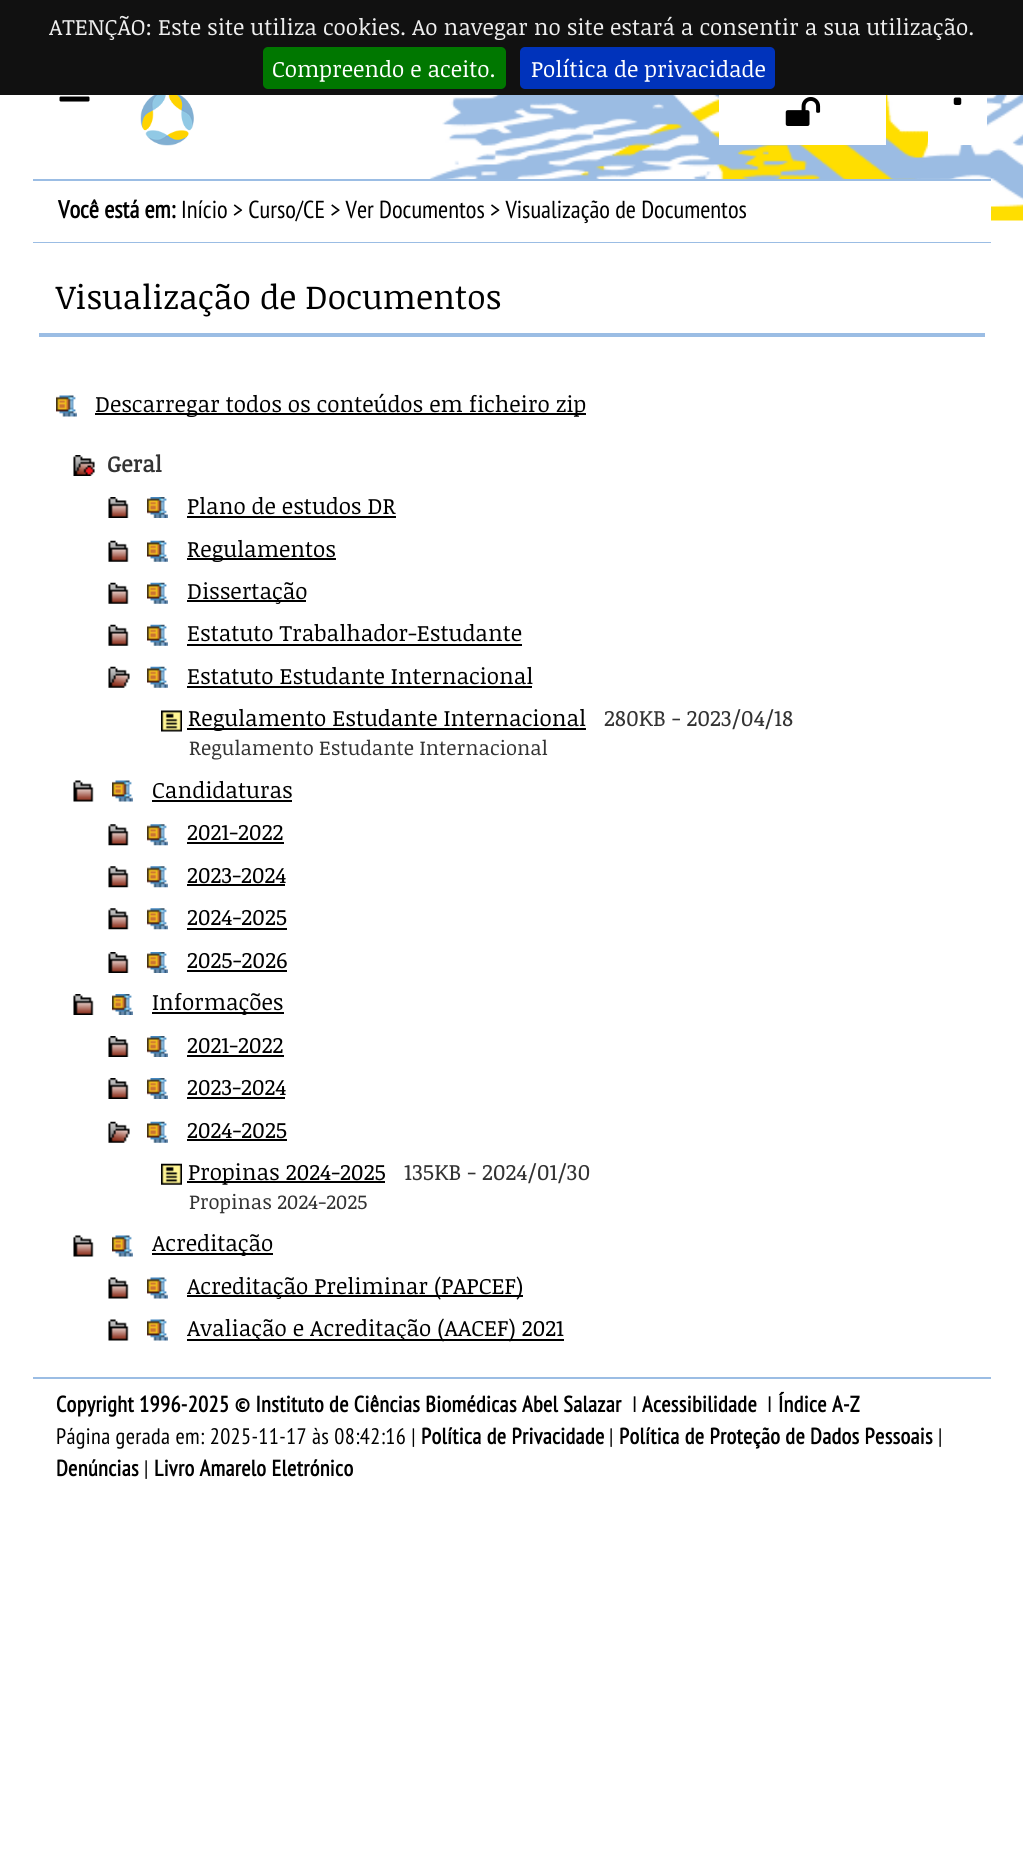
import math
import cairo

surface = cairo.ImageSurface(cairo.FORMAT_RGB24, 1023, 1850)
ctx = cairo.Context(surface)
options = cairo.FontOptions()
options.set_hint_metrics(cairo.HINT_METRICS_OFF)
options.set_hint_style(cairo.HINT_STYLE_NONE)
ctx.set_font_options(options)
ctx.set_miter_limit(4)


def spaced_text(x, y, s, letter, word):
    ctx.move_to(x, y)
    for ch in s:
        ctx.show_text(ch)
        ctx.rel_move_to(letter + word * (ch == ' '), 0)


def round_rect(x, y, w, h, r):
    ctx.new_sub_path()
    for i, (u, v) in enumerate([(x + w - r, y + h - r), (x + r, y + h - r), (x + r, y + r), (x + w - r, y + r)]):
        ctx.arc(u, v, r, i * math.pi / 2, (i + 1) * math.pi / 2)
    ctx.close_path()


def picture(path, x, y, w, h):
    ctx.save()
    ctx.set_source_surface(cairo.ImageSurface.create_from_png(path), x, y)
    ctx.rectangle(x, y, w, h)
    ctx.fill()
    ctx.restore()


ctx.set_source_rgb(1, 1, 1)
ctx.paint()
picture("img1.png", 429, 95, 594, 126)
ctx.set_source_rgb(0.067, 0.067, 0.067)
ctx.rectangle(0, 0, 1023, 95)
ctx.fill()
ctx.select_font_face("Noticia Text")
ctx.set_font_size(22.4)
ctx.set_source_rgb(0.933, 0.933, 0.933)
ctx.move_to(49, 35)
ctx.show_text("ATENÇÃO: Este site utiliza cookies. Ao navegar no site estará a consentir a sua utilização.")
ctx.set_source_rgb(0, 0.467, 0)
round_rect(263, 47, 243, 42, 5)
ctx.fill()
ctx.set_source_rgb(1, 1, 1)
ctx.move_to(272, 77)
ctx.show_text("Compreendo e aceito.")
ctx.set_source_rgb(0, 0.2, 0.733)
round_rect(520, 47, 255, 42, 5)
ctx.fill()
ctx.set_source_rgb(1, 1, 1)
ctx.move_to(531, 77)
ctx.show_text("Política de privacidade")
picture("img2.png", 59, 96, 31, 6)
picture("img3.png", 140, 95, 54, 51)
ctx.rectangle(719, 95, 167, 50)
ctx.fill()
picture("img4.png", 785, 97, 36, 29)
ctx.rectangle(928, 95, 59, 50)
ctx.fill()
picture("img5.png", 953, 97, 9, 8)
ctx.rectangle(429, 181, 562, 40)
ctx.fill()
ctx.set_source_rgb(0.608, 0.741, 0.894)
ctx.rectangle(33, 179, 958, 2)
ctx.fill()
ctx.rectangle(33, 242, 958, 1)
ctx.fill()
ctx.select_font_face("PT Sans Narrow", cairo.FONT_SLANT_NORMAL, cairo.FONT_WEIGHT_BOLD)
ctx.set_font_size(24.6)
ctx.set_source_rgb(0, 0, 0)
ctx.move_to(58, 218)
ctx.show_text("Você está em:")
ctx.select_font_face("PT Sans Narrow")
ctx.move_to(181, 218)
ctx.show_text("Início > Curso/CE > Ver Documentos > Visualização de Documentos")
ctx.set_source_rgb(0.608, 0.741, 0.894)
ctx.rectangle(39, 333, 946, 4)
ctx.fill()
ctx.select_font_face("Noticia Text")
ctx.set_font_size(33.6)
ctx.set_source_rgb(0, 0, 0)
ctx.move_to(56, 309)
ctx.show_text("Visualização de Documentos")
picture("img6.png", 56, 395, 21, 22)
ctx.rectangle(95, 413, 491, 2)
ctx.fill()
ctx.set_font_size(22.4)
ctx.move_to(95, 412)
ctx.show_text("Descarregar todos os conteúdos em ficheiro zip")
picture("img7.png", 73, 455, 22, 21)
ctx.select_font_face("Noticia Text", cairo.FONT_SLANT_NORMAL, cairo.FONT_WEIGHT_BOLD)
ctx.set_source_rgb(0.2, 0.2, 0.2)
ctx.move_to(107, 472)
ctx.show_text("Geral")
picture("img8.png", 108, 497, 21, 21)
picture("img9.png", 147, 497, 21, 21)
ctx.select_font_face("Noticia Text")
ctx.set_source_rgb(0, 0, 0)
ctx.move_to(187, 514)
ctx.show_text("Plano de estudos DR")
ctx.rectangle(187, 516, 209, 2)
ctx.fill()
picture("img10.png", 108, 540, 21, 22)
picture("img11.png", 147, 540, 21, 22)
ctx.rectangle(187, 558, 149, 2)
ctx.fill()
ctx.move_to(187, 557)
ctx.show_text("Regulamentos")
picture("img10.png", 108, 582, 21, 22)
picture("img11.png", 147, 582, 21, 22)
ctx.rectangle(187, 600, 119, 2)
ctx.fill()
ctx.move_to(187, 599)
ctx.show_text("Dissertação")
picture("img10.png", 108, 624, 21, 22)
picture("img11.png", 147, 624, 21, 22)
ctx.move_to(187, 641)
ctx.show_text("Estatuto Trabalhador-Estudante")
ctx.rectangle(187, 644, 335, 2)
ctx.fill()
picture("img12.png", 108, 666, 22, 22)
picture("img11.png", 147, 666, 21, 22)
ctx.move_to(187, 684)
ctx.show_text("Estatuto Estudante Internacional")
ctx.rectangle(187, 686, 345, 2)
ctx.fill()
picture("img13.png", 161, 710, 21, 22)
ctx.rectangle(187, 728, 399, 2)
ctx.fill()
ctx.move_to(188, 726)
ctx.show_text("Regulamento Estudante Internacional")
ctx.set_source_rgb(0.2, 0.2, 0.2)
ctx.move_to(604, 726)
ctx.show_text("280KB - 2023/04/18")
ctx.set_font_size(20.2)
ctx.move_to(189, 755)
ctx.show_text("Regulamento Estudante Internacional")
picture("img14.png", 73, 780, 21, 22)
picture("img6.png", 112, 780, 21, 22)
ctx.set_font_size(22.4)
ctx.set_source_rgb(0, 0, 0)
ctx.move_to(152, 798)
ctx.show_text("Candidaturas")
ctx.rectangle(152, 800, 140, 2)
ctx.fill()
picture("img15.png", 108, 824, 21, 22)
picture("img16.png", 147, 824, 21, 22)
ctx.move_to(187, 840)
ctx.show_text("2021-2022")
ctx.rectangle(187, 842, 97, 2)
ctx.fill()
picture("img15.png", 108, 866, 21, 22)
picture("img16.png", 147, 866, 21, 22)
ctx.move_to(187, 883)
ctx.show_text("2023-2024")
ctx.rectangle(187, 884, 98, 2)
ctx.fill()
picture("img15.png", 108, 908, 21, 22)
picture("img16.png", 147, 908, 21, 22)
ctx.move_to(187, 925)
ctx.show_text("2024-2025")
ctx.rectangle(187, 928, 100, 2)
ctx.fill()
picture("img8.png", 108, 952, 21, 21)
picture("img9.png", 147, 952, 21, 21)
ctx.move_to(187, 968)
ctx.show_text("2025-2026")
ctx.rectangle(187, 970, 100, 2)
ctx.fill()
picture("img17.png", 73, 994, 21, 21)
picture("img9.png", 112, 994, 21, 21)
ctx.rectangle(152, 1012, 132, 2)
ctx.fill()
ctx.move_to(152, 1010)
ctx.show_text("Informações")
picture("img8.png", 108, 1036, 21, 21)
picture("img9.png", 147, 1036, 21, 21)
ctx.move_to(187, 1053)
ctx.show_text("2021-2022")
ctx.rectangle(187, 1055, 97, 2)
ctx.fill()
picture("img8.png", 108, 1078, 21, 21)
picture("img9.png", 147, 1078, 21, 21)
ctx.move_to(187, 1095)
ctx.show_text("2023-2024")
ctx.rectangle(187, 1097, 98, 2)
ctx.fill()
picture("img12.png", 108, 1121, 22, 22)
picture("img11.png", 147, 1121, 21, 22)
ctx.move_to(187, 1138)
ctx.show_text("2024-2025")
ctx.rectangle(187, 1139, 100, 2)
ctx.fill()
picture("img18.png", 161, 1163, 21, 22)
ctx.rectangle(187, 1181, 198, 2)
ctx.fill()
ctx.move_to(188, 1180)
ctx.show_text("Propinas 2024-2025")
ctx.set_source_rgb(0.2, 0.2, 0.2)
ctx.move_to(404, 1180)
ctx.show_text("135KB - 2024/01/30")
ctx.set_font_size(20.2)
ctx.move_to(189, 1209)
ctx.show_text("Propinas 2024-2025")
picture("img14.png", 73, 1235, 21, 22)
picture("img6.png", 112, 1235, 21, 22)
ctx.set_source_rgb(0, 0, 0)
ctx.rectangle(152, 1253, 121, 2)
ctx.fill()
ctx.set_font_size(22.4)
ctx.move_to(152, 1251)
ctx.show_text("Acreditação")
picture("img19.png", 108, 1277, 21, 22)
picture("img6.png", 147, 1277, 21, 22)
ctx.rectangle(187, 1295, 336, 2)
ctx.fill()
ctx.move_to(187, 1294)
ctx.show_text("Acreditação Preliminar (PAPCEF)")
picture("img19.png", 108, 1319, 21, 22)
picture("img6.png", 147, 1319, 21, 22)
ctx.rectangle(187, 1339, 377, 2)
ctx.fill()
ctx.move_to(187, 1336)
ctx.show_text("Avaliação e Acreditação (AACEF) 2021")
ctx.set_source_rgb(0.608, 0.741, 0.894)
ctx.rectangle(33, 1377, 958, 2)
ctx.fill()
ctx.select_font_face("PT Sans Narrow", cairo.FONT_SLANT_NORMAL, cairo.FONT_WEIGHT_BOLD)
ctx.set_source_rgb(0, 0, 0)
spaced_text(56, 1412, "Copyright 1996-2025 © Instituto de Ciências Biomédicas Abel Salazar", 0.35, 0)
ctx.select_font_face("PT Sans Narrow")
spaced_text(632, 1412, "I", 0.35, 0)
ctx.select_font_face("PT Sans Narrow", cairo.FONT_SLANT_NORMAL, cairo.FONT_WEIGHT_BOLD)
spaced_text(642, 1412, "Acessibilidade", 0.35, 0)
ctx.select_font_face("PT Sans Narrow")
spaced_text(767, 1412, "I", 0.35, 0)
ctx.select_font_face("PT Sans Narrow", cairo.FONT_SLANT_NORMAL, cairo.FONT_WEIGHT_BOLD)
spaced_text(778, 1412, "Índice A-Z", 0.35, 0)
ctx.select_font_face("PT Sans Narrow")
spaced_text(56, 1444, "Página gerada em: 2025-11-17 às 08:42:16 |", 0.35, 0)
ctx.select_font_face("PT Sans Narrow", cairo.FONT_SLANT_NORMAL, cairo.FONT_WEIGHT_BOLD)
spaced_text(421, 1444, "Política de Privacidade", 0.35, 0)
ctx.select_font_face("PT Sans Narrow")
spaced_text(609, 1444, "|", 0.35, 0)
ctx.select_font_face("PT Sans Narrow", cairo.FONT_SLANT_NORMAL, cairo.FONT_WEIGHT_BOLD)
spaced_text(619, 1444, "Política de Proteção de Dados Pessoais", 0.35, 0)
ctx.select_font_face("PT Sans Narrow")
spaced_text(938, 1444, "|", 0.35, 0)
ctx.select_font_face("PT Sans Narrow", cairo.FONT_SLANT_NORMAL, cairo.FONT_WEIGHT_BOLD)
spaced_text(56, 1476, "Denúncias", 0.35, 0)
ctx.select_font_face("PT Sans Narrow")
spaced_text(144, 1476, "|", 0.35, 0)
ctx.select_font_face("PT Sans Narrow", cairo.FONT_SLANT_NORMAL, cairo.FONT_WEIGHT_BOLD)
spaced_text(154, 1476, "Livro Amarelo Eletrónico", 0.35, 0)
surface.write_to_png("page.png")
